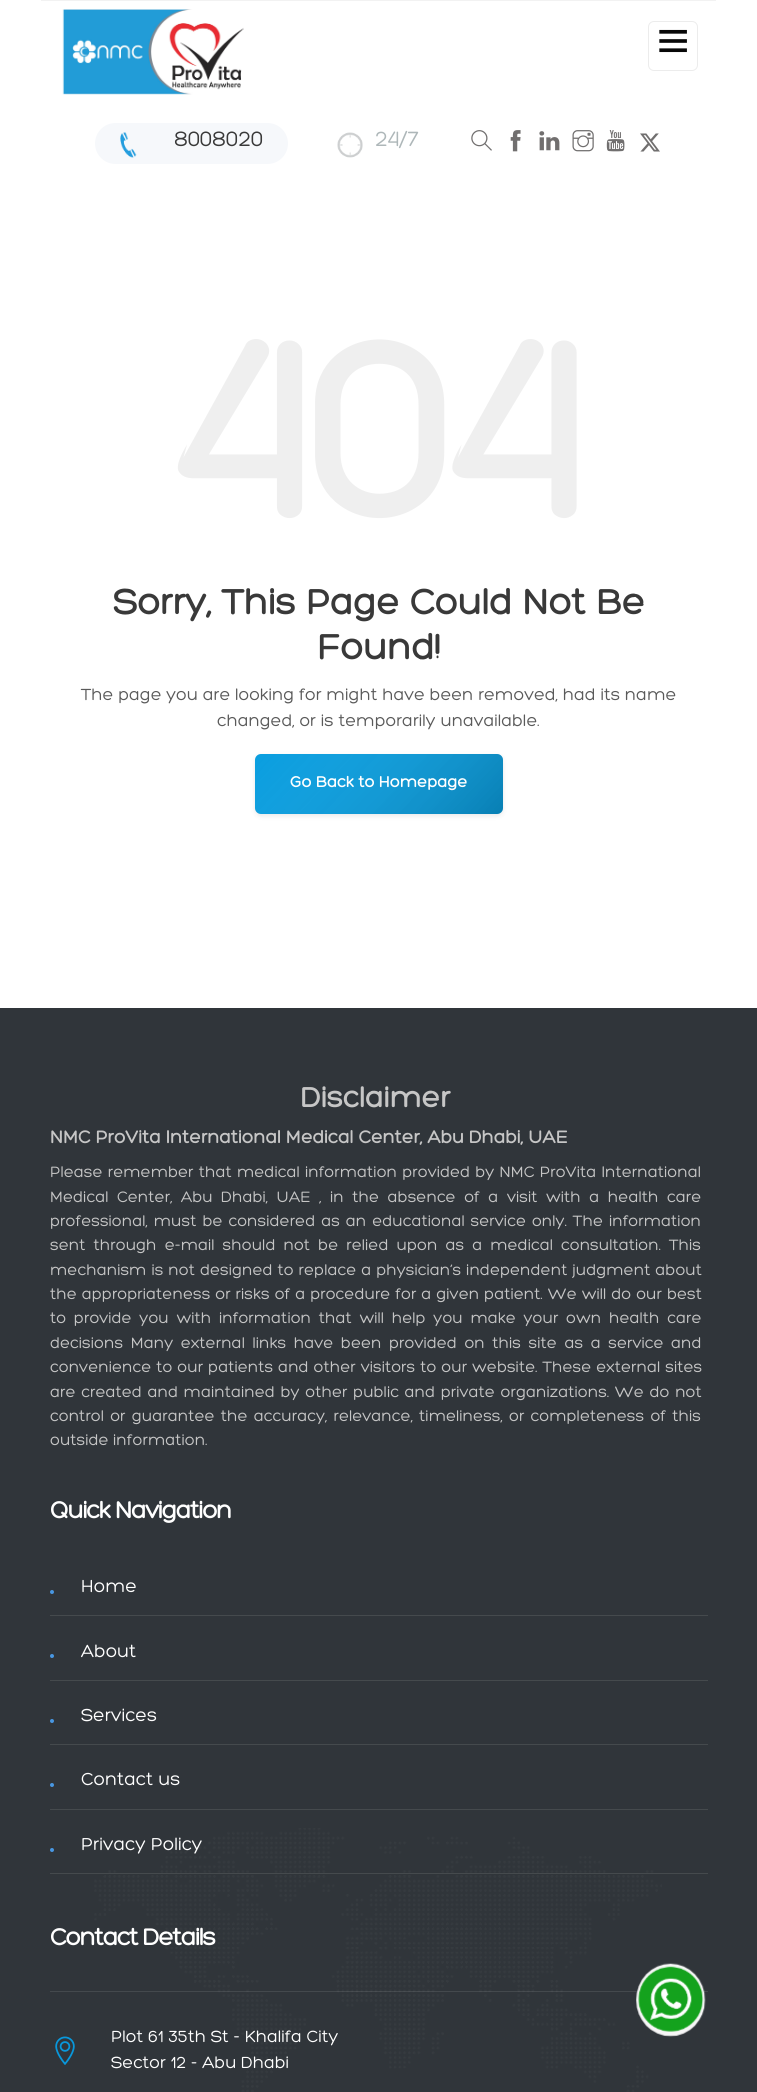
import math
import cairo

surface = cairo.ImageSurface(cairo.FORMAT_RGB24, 757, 2092)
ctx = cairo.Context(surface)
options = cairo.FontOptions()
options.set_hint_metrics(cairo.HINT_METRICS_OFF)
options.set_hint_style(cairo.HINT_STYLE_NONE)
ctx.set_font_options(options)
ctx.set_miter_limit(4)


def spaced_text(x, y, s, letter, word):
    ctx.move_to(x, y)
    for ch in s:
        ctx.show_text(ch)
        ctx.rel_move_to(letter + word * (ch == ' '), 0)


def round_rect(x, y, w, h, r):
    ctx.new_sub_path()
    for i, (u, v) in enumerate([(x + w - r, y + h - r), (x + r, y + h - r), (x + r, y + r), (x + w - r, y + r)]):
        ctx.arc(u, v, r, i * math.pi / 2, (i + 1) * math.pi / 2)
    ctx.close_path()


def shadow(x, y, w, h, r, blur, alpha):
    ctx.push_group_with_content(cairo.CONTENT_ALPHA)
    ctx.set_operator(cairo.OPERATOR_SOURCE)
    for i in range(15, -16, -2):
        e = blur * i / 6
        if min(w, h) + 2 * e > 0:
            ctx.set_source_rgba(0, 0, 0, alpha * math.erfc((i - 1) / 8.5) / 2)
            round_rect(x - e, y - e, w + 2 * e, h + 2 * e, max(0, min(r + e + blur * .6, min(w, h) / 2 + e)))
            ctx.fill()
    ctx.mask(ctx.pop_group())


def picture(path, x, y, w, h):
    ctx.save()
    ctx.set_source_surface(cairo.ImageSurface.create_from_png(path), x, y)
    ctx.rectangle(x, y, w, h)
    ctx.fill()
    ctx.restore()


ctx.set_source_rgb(1, 1, 1)
ctx.paint()
ctx.set_source_rgb(0.949, 0.949, 0.949)
ctx.rectangle(41, 0, 675, 1)
ctx.fill()
picture("img1.png", 62, 9, 182, 86)
round_rect(648.5, 21.5, 49, 49, 5.5)
ctx.set_source_rgb(0.922, 0.922, 0.922)
ctx.set_line_width(1)
ctx.stroke()
picture("img2.png", 659, 29, 28, 24)
ctx.set_source_rgb(0.961, 0.969, 0.984)
round_rect(95, 123, 193, 41, 20.5)
ctx.fill()
picture("img3.png", 120, 132, 17, 26)
ctx.select_font_face("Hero")
ctx.set_font_size(22.5)
ctx.set_source_rgb(0.224, 0.224, 0.224)
ctx.move_to(174, 146)
ctx.show_text("8008020")
picture("img4.png", 337, 132, 26, 26)
ctx.set_source_rgb(0.682, 0.718, 0.725)
ctx.move_to(375, 146)
ctx.show_text("24/7")
picture("img5.png", 471, 130, 21, 21)
picture("img6.png", 510, 130, 11, 22)
picture("img7.png", 539, 131, 21, 20)
picture("img8.png", 572, 130, 22, 22)
picture("img9.png", 606, 130, 19, 22)
picture("img10.png", 640, 133, 20, 19)
ctx.select_font_face("Hero", cairo.FONT_SLANT_NORMAL, cairo.FONT_WEIGHT_BOLD)
ctx.set_font_size(262)
ctx.set_source_rgb(0.937, 0.937, 0.937)
ctx.move_to(174, 516)
ctx.show_text("404")
ctx.set_font_size(37.5)
ctx.set_source_rgb(0.224, 0.224, 0.224)
ctx.move_to(113, 614)
ctx.show_text("Sorry, This Page Could Not Be")
ctx.move_to(317, 659)
ctx.show_text("Found!")
ctx.select_font_face("Hero")
ctx.set_font_size(17.5)
ctx.set_source_rgb(0.353, 0.353, 0.353)
ctx.move_to(81, 700)
ctx.show_text("The page you are looking for might have been removed, had its name")
ctx.move_to(217, 726)
ctx.show_text("changed, or is temporarily unavailable.")
ctx.set_source_rgb(0.031, 0.031, 0.031)
shadow(255, 756, 248, 60, 6, 2.5, 0.09)
ctx.set_source_rgb(0.031, 0.616, 0.875)
round_rect(255, 754, 248, 60, 6)
ctx.fill()
gradient = cairo.LinearGradient(298, 708, 460, 859)
gradient.add_color_stop_rgba(0, 1, 1, 1, 0.01)
gradient.add_color_stop_rgba(1, 0.031, 0.031, 0.031, 0.2)
ctx.set_source(gradient)
round_rect(255, 754, 248, 60, 6)
ctx.fill()
ctx.select_font_face("Hero", cairo.FONT_SLANT_NORMAL, cairo.FONT_WEIGHT_BOLD)
ctx.set_font_size(16.25)
ctx.set_source_rgb(1, 1, 1)
ctx.move_to(290, 787)
ctx.show_text("Go Back to Homepage")
ctx.set_source_rgb(0.188, 0.208, 0.227)
ctx.rectangle(0, 1008, 757, 1084)
ctx.fill()
picture("img11.png", 94, 1828, 568, 264)
ctx.set_font_size(30)
ctx.set_source_rgb(0.776, 0.776, 0.776)
ctx.move_to(301, 1107)
ctx.show_text("Disclaimer")
ctx.set_font_size(18.75)
ctx.move_to(50, 1143)
ctx.show_text("NMC ProVita International Medical Center, Abu Dhabi, UAE")
ctx.select_font_face("Hero")
ctx.set_font_size(16.25)
spaced_text(50, 1177, "Please remember that medical information provided by NMC ProVita International", 0, 0.75)
spaced_text(50, 1202, "Medical Center, Abu Dhabi, UAE , in the absence of a visit with a health care", 0, 4.1)
spaced_text(50, 1226, "professional, must be considered as an educational service only. The information", 0, 1.5)
spaced_text(50, 1250, "sent through e-mail should not be relied upon as a medical consultation. This", 0, 3.6)
spaced_text(50, 1275, "mechanism is not designed to replace a physician’s independent judgment about", 0, 0.5)
spaced_text(50, 1299, "the appropriateness or risks of a procedure for a given patient. We will do our best", 0, 0.5)
spaced_text(50, 1323, "to provide you with information that will help you make your own health care", 0, 3.25)
spaced_text(50, 1348, "decisions Many external links have been provided on this site as a service and", 0, 3.1)
spaced_text(50, 1372, "convenience to our patients and other visitors to our website. These external sites", 0, 0.5)
spaced_text(50, 1397, "are created and maintained by other public and private organizations. We do not", 0, 1.2)
spaced_text(50, 1421, "control or guarantee the accuracy, relevance, timeliness, or completeness of this", 0, 1.75)
ctx.move_to(50, 1445)
ctx.show_text("outside information.")
ctx.select_font_face("Hero", cairo.FONT_SLANT_NORMAL, cairo.FONT_WEIGHT_BOLD)
ctx.set_font_size(25)
ctx.set_source_rgb(1, 1, 1)
spaced_text(50, 1518, "Quick Navigation", -1.25, 0)
ctx.set_source_rgb(0.271, 0.29, 0.302)
ctx.rectangle(50, 1615, 658, 1)
ctx.fill()
ctx.set_source_rgb(0.282, 0.592, 0.886)
ctx.arc(52, 1592, 2, 0, 2 * math.pi)
ctx.fill()
ctx.select_font_face("Hero")
ctx.set_font_size(18.75)
ctx.set_source_rgb(1, 1, 1)
ctx.move_to(81, 1592)
ctx.show_text("Home")
ctx.set_source_rgb(0.271, 0.29, 0.302)
ctx.rectangle(50, 1680, 658, 1)
ctx.fill()
ctx.set_source_rgb(0.282, 0.592, 0.886)
ctx.arc(52, 1656, 2, 0, 2 * math.pi)
ctx.fill()
ctx.set_source_rgb(1, 1, 1)
ctx.move_to(81, 1657)
ctx.show_text("About")
ctx.set_source_rgb(0.271, 0.29, 0.302)
ctx.rectangle(50, 1744, 658, 1)
ctx.fill()
ctx.set_source_rgb(0.282, 0.592, 0.886)
ctx.arc(52, 1721, 2, 0, 2 * math.pi)
ctx.fill()
ctx.set_source_rgb(1, 1, 1)
ctx.move_to(81, 1721)
ctx.show_text("Services")
ctx.set_source_rgb(0.271, 0.29, 0.302)
ctx.rectangle(50, 1809, 658, 1)
ctx.fill()
ctx.set_source_rgb(0.282, 0.592, 0.886)
ctx.arc(52, 1785, 2, 0, 2 * math.pi)
ctx.fill()
ctx.set_source_rgb(1, 1, 1)
ctx.move_to(81, 1785)
ctx.show_text("Contact us")
ctx.set_source_rgb(0.271, 0.29, 0.302)
ctx.rectangle(50, 1873, 658, 1)
ctx.fill()
ctx.set_source_rgb(0.282, 0.592, 0.886)
ctx.arc(52, 1850, 2, 0, 2 * math.pi)
ctx.fill()
ctx.set_source_rgb(1, 1, 1)
ctx.move_to(81, 1850)
ctx.show_text("Privacy Policy")
ctx.select_font_face("Hero", cairo.FONT_SLANT_NORMAL, cairo.FONT_WEIGHT_BOLD)
ctx.set_font_size(25)
spaced_text(50, 1945, "Contact Details", -1.25, 0)
ctx.set_source_rgba(1, 1, 1, 0.1)
ctx.rectangle(50, 1991, 658, 1)
ctx.fill()
picture("img12.png", 55, 2036, 20, 29)
ctx.select_font_face("Hero")
ctx.set_font_size(17.5)
ctx.set_source_rgb(1, 1, 1)
ctx.move_to(111, 2042)
ctx.show_text("Plot 61 35th St - Khalifa City")
ctx.move_to(111, 2068)
ctx.show_text("Sector 12 - Abu Dhabi")
picture("img13.png", 636, 1963, 70, 74)
surface.write_to_png("page.png")
